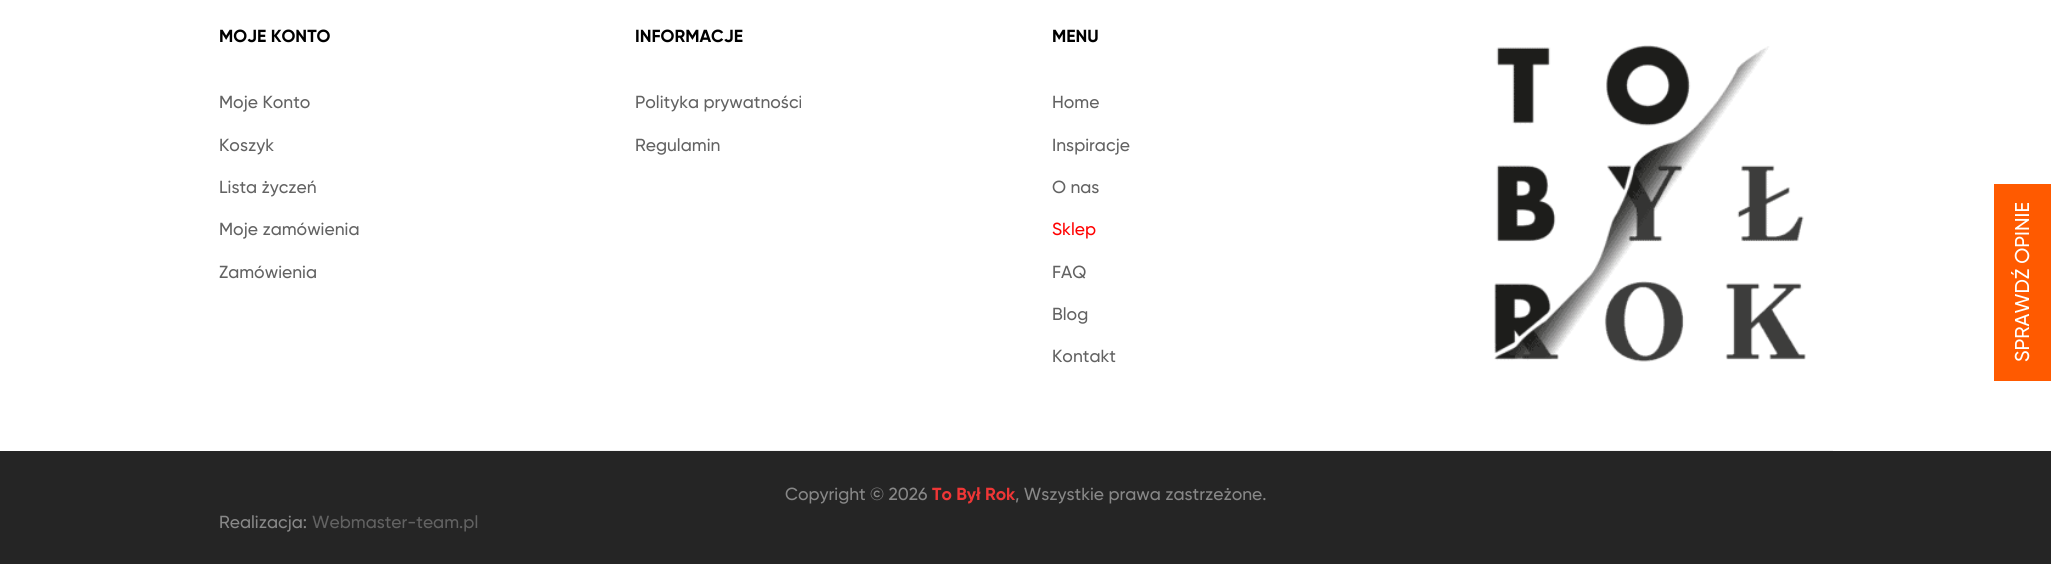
import math
import cairo

surface = cairo.ImageSurface(cairo.FORMAT_RGB24, 2051, 564)
ctx = cairo.Context(surface)
options = cairo.FontOptions()
options.set_hint_metrics(cairo.HINT_METRICS_OFF)
options.set_hint_style(cairo.HINT_STYLE_NONE)
ctx.set_font_options(options)
ctx.set_miter_limit(4)


def picture(path, x, y, w, h):
    ctx.save()
    ctx.set_source_surface(cairo.ImageSurface.create_from_png(path), x, y)
    ctx.rectangle(x, y, w, h)
    ctx.fill()
    ctx.restore()


ctx.set_source_rgb(1, 1, 1)
ctx.paint()
ctx.set_source_rgb(0.949, 0.949, 0.949)
ctx.rectangle(220, 450, 1613, 1)
ctx.fill()
ctx.select_font_face("Gilroy", cairo.FONT_SLANT_NORMAL, cairo.FONT_WEIGHT_BOLD)
ctx.set_font_size(17.5)
ctx.set_source_rgb(0, 0, 0)
ctx.move_to(219, 42)
ctx.show_text("MOJE KONTO")
ctx.select_font_face("Gilroy Medium")
ctx.set_source_rgb(0.384, 0.384, 0.384)
ctx.move_to(219, 108)
ctx.show_text("Moje Konto")
ctx.move_to(219, 151)
ctx.show_text("Koszyk")
ctx.move_to(219, 193)
ctx.show_text("Lista życzeń")
ctx.move_to(219, 235)
ctx.show_text("Moje zamówienia")
ctx.move_to(219, 278)
ctx.show_text("Zamówienia")
ctx.select_font_face("Gilroy", cairo.FONT_SLANT_NORMAL, cairo.FONT_WEIGHT_BOLD)
ctx.set_source_rgb(0, 0, 0)
ctx.move_to(635, 42)
ctx.show_text("INFORMACJE")
ctx.select_font_face("Gilroy Medium")
ctx.set_source_rgb(0.384, 0.384, 0.384)
ctx.move_to(635, 108)
ctx.show_text("Polityka prywatności")
ctx.move_to(635, 151)
ctx.show_text("Regulamin")
ctx.select_font_face("Gilroy", cairo.FONT_SLANT_NORMAL, cairo.FONT_WEIGHT_BOLD)
ctx.set_source_rgb(0, 0, 0)
ctx.move_to(1052, 42)
ctx.show_text("MENU")
ctx.select_font_face("Gilroy Medium")
ctx.set_source_rgb(0.384, 0.384, 0.384)
ctx.move_to(1052, 108)
ctx.show_text("Home")
ctx.move_to(1052, 151)
ctx.show_text("Inspiracje")
ctx.move_to(1052, 193)
ctx.show_text("O nas")
ctx.set_source_rgb(1, 0, 0)
ctx.move_to(1052, 235)
ctx.show_text("Sklep")
ctx.set_source_rgb(0.384, 0.384, 0.384)
ctx.move_to(1052, 278)
ctx.show_text("FAQ")
ctx.move_to(1052, 320)
ctx.show_text("Blog")
ctx.move_to(1052, 362)
ctx.show_text("Kontakt")
picture("img1.png", 1494, 45, 312, 317)
ctx.set_source_rgb(0.145, 0.145, 0.145)
ctx.rectangle(0, 451, 2051, 113)
ctx.fill()
ctx.set_source_rgb(0.533, 0.533, 0.533)
ctx.move_to(785, 500)
ctx.show_text("Copyright © 2026")
ctx.select_font_face("Gilroy", cairo.FONT_SLANT_NORMAL, cairo.FONT_WEIGHT_BOLD)
ctx.set_source_rgb(0.937, 0.212, 0.212)
ctx.move_to(932, 500)
ctx.show_text("To Był Rok")
ctx.select_font_face("Gilroy Medium")
ctx.set_source_rgb(0.533, 0.533, 0.533)
ctx.move_to(1015, 500)
ctx.show_text(", Wszystkie prawa zastrzeżone.")
ctx.move_to(219, 528)
ctx.show_text("Realizacja:")
ctx.set_source_rgb(0.384, 0.384, 0.384)
ctx.move_to(312, 528)
ctx.show_text("Webmaster-team.pl")
ctx.set_source_rgb(1, 0.353, 0)
ctx.rectangle(1994, 184, 57, 197)
ctx.fill()
ctx.set_font_size(20)
ctx.set_source_rgb(1, 1, 1)
ctx.save()
ctx.translate(2029, 362)
ctx.rotate(-90 * math.pi / 180)
ctx.move_to(0, 0)
ctx.show_text("SPRAWDŹ OPINIE")
ctx.restore()
surface.write_to_png("page.png")
